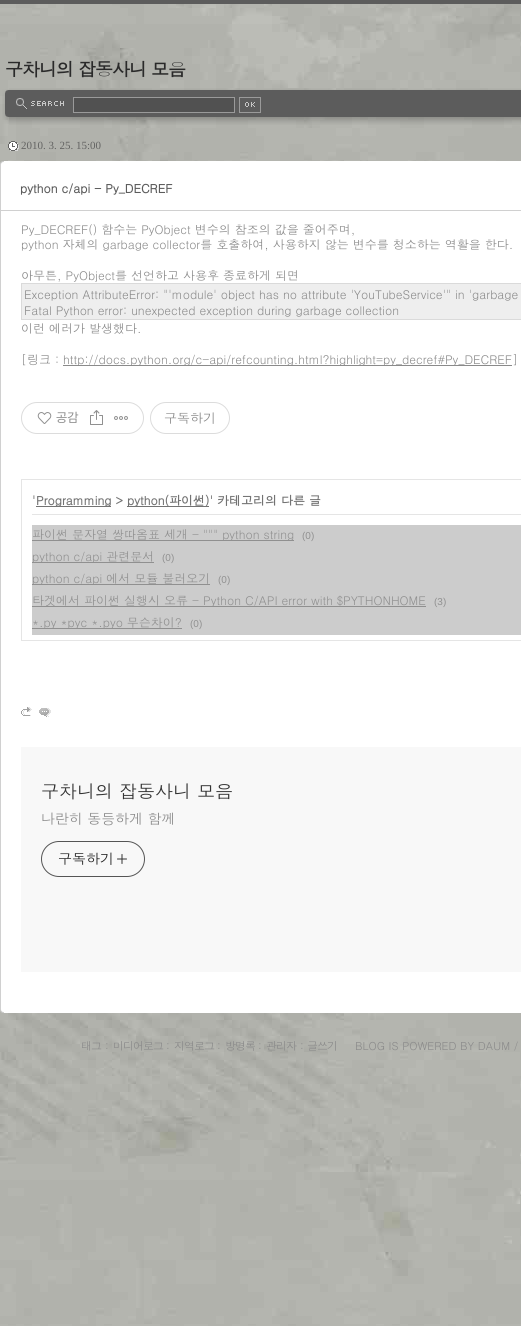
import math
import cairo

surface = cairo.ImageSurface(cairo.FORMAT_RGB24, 521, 1326)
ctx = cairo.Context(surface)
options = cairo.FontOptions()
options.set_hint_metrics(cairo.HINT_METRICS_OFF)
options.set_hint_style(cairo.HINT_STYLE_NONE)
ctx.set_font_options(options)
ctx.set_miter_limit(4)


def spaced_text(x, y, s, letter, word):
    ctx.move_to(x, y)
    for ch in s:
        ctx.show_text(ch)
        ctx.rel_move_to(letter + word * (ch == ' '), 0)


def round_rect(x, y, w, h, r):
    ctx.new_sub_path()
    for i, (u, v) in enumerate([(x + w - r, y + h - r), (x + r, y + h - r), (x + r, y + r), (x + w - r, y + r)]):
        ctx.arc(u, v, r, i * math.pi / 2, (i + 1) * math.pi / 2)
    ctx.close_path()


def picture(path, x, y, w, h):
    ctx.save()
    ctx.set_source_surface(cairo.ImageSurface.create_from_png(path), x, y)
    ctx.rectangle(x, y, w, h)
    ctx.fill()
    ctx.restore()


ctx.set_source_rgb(1, 1, 1)
ctx.paint()
picture("img1.png", 0, 4, 521, 1322)
ctx.set_source_rgb(0.361, 0.361, 0.361)
ctx.rectangle(0, 0, 521, 4)
ctx.fill()
ctx.select_font_face("Dotum", cairo.FONT_SLANT_NORMAL, cairo.FONT_WEIGHT_BOLD)
ctx.set_font_size(18)
ctx.set_source_rgb(0.165, 0.165, 0.165)
spaced_text(5, 76, "구차니의 잡동사니 모음", -1, 0)
picture("img2.png", 2, 89, 7, 35)
picture("img3.png", 9, 88, 512, 37)
picture("img4.png", 16, 98, 48, 11)
ctx.set_source_rgb(0.318, 0.318, 0.318)
ctx.rectangle(73.5, 97.5, 161, 15)
ctx.fill_preserve()
ctx.set_source_rgb(0.604, 0.604, 0.604)
ctx.set_line_width(1)
ctx.stroke()
picture("img5.png", 239, 97, 22, 16)
picture("img6.png", 8, 141, 11, 10)
ctx.select_font_face("Liberation Serif")
ctx.set_font_size(11)
ctx.set_source_rgb(0.388, 0.388, 0.384)
ctx.move_to(21, 149)
ctx.show_text("2010. 3. 25. 15:00")
picture("img7.png", 0, 161, 4, 4)
ctx.set_source_rgb(1, 1, 1)
ctx.rectangle(4, 161, 517, 4)
ctx.fill()
ctx.rectangle(1, 165, 520, 844)
ctx.fill()
ctx.set_source_rgb(0.816, 0.816, 0.816)
ctx.rectangle(0, 165, 1, 844)
ctx.fill()
ctx.rectangle(1, 210, 520, 1)
ctx.fill()
ctx.select_font_face("Dotum", cairo.FONT_SLANT_NORMAL, cairo.FONT_WEIGHT_BOLD)
ctx.set_font_size(12)
ctx.set_source_rgb(0.361, 0.361, 0.361)
ctx.move_to(20, 193)
ctx.show_text("python c/api - Py_DECREF")
ctx.select_font_face("Dotum")
ctx.set_source_rgb(0.541, 0.541, 0.541)
ctx.move_to(21, 234)
ctx.show_text("Py_DECREF() 함수는 PyObject 변수의 참조의 값을 줄어주며,")
ctx.move_to(21, 249)
ctx.show_text("python 자체의 garbage collector를 호출하여, 사용하지 않는 변수를 청소하는 역활을 한다.")
ctx.move_to(21, 280)
ctx.show_text("아무튼, PyObject를 선언하고 사용후 종료하게 되면")
ctx.set_source_rgb(0.933, 0.933, 0.933)
ctx.rectangle(22, 284, 499, 35)
ctx.fill()
ctx.set_source_rgb(0.855, 0.855, 0.855)
ctx.rectangle(21, 283, 500, 1)
ctx.fill()
ctx.rectangle(21, 319, 500, 1)
ctx.fill()
ctx.rectangle(21, 283, 1, 37)
ctx.fill()
ctx.set_source_rgb(0.541, 0.541, 0.541)
ctx.move_to(24, 299)
ctx.show_text("Exception AttributeError: \"'module' object has no attribute 'YouTubeService'\" in 'garbage")
ctx.move_to(24, 315)
ctx.show_text("Fatal Python error: unexpected exception during garbage collection")
ctx.move_to(21, 333)
ctx.show_text("이런 에러가 발생했다.")
ctx.move_to(21, 364)
ctx.show_text("[링크 :")
ctx.rectangle(63, 365, 449, 1)
ctx.fill()
ctx.move_to(63, 364)
ctx.show_text("http://docs.python.org/c-api/refcounting.html?highlight=py_decref#Py_DECREF]")
round_rect(21.5, 402.5, 122, 31, 15.5)
ctx.set_source_rgb(0.863, 0.863, 0.863)
ctx.stroke()
picture("img8.png", 37, 412, 15, 12)
ctx.select_font_face("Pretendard")
ctx.set_font_size(13)
ctx.set_source_rgb(0.541, 0.541, 0.541)
ctx.move_to(56, 422)
ctx.show_text("공감")
picture("img9.png", 90, 410, 13, 15)
picture("img10.png", 114, 416, 14, 4)
round_rect(150.5, 402.5, 79, 31, 15.5)
ctx.set_source_rgb(0.863, 0.863, 0.863)
ctx.stroke()
ctx.select_font_face("Dotum")
ctx.set_source_rgb(0.541, 0.541, 0.541)
ctx.move_to(164, 423)
ctx.show_text("구독하기")
ctx.rectangle(21.5, 479.5, 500, 161)
ctx.set_source_rgb(0.898, 0.898, 0.898)
ctx.stroke()
ctx.rectangle(32, 514, 489, 1)
ctx.fill()
ctx.select_font_face("Dotum", cairo.FONT_SLANT_NORMAL, cairo.FONT_WEIGHT_BOLD)
ctx.set_font_size(12)
ctx.set_source_rgb(0.451, 0.451, 0.451)
ctx.move_to(32, 505)
ctx.show_text("'")
ctx.rectangle(36, 506, 75, 1)
ctx.fill()
ctx.move_to(36, 505)
ctx.show_text("Programming >")
ctx.rectangle(127, 506, 82, 1)
ctx.fill()
ctx.move_to(127, 505)
ctx.show_text("python(파이썬)' 카테고리의 다른 글")
ctx.set_source_rgb(0.8, 0.8, 0.8)
ctx.rectangle(32, 525, 489, 110)
ctx.fill()
ctx.set_source_rgb(0.565, 0.565, 0.565)
ctx.rectangle(32, 540, 262, 1)
ctx.fill()
ctx.select_font_face("Dotum")
ctx.move_to(32, 539)
ctx.show_text("파이썬 문자열 쌍따옴표 세개 - \"\"\" python string")
ctx.select_font_face("Liberation Sans")
ctx.set_font_size(10)
ctx.move_to(302, 539)
ctx.show_text("(0)")
ctx.rectangle(32, 562, 122, 1)
ctx.fill()
ctx.select_font_face("Dotum")
ctx.set_font_size(12)
ctx.move_to(32, 561)
ctx.show_text("python c/api 관련문서")
ctx.select_font_face("Liberation Sans")
ctx.set_font_size(10)
ctx.move_to(162, 561)
ctx.show_text("(0)")
ctx.rectangle(32, 584, 178, 1)
ctx.fill()
ctx.select_font_face("Dotum")
ctx.set_font_size(12)
ctx.move_to(32, 583)
ctx.show_text("python c/api 에서 모듈 불러오기")
ctx.select_font_face("Liberation Sans")
ctx.set_font_size(10)
ctx.move_to(218, 583)
ctx.show_text("(0)")
ctx.rectangle(32, 606, 394, 1)
ctx.fill()
ctx.select_font_face("Dotum")
ctx.set_font_size(12)
ctx.move_to(32, 605)
ctx.show_text("타겟에서 파이썬 실행시 오류 - Python C/API error with $PYTHONHOME")
ctx.select_font_face("Liberation Sans")
ctx.set_font_size(10)
ctx.move_to(434, 605)
ctx.show_text("(3)")
ctx.rectangle(32, 628, 150, 1)
ctx.fill()
ctx.select_font_face("Dotum")
ctx.set_font_size(12)
ctx.move_to(32, 627)
ctx.show_text("*.py *pyc *.pyo 무슨차이?")
ctx.select_font_face("Liberation Sans")
ctx.set_font_size(10)
ctx.move_to(190, 627)
ctx.show_text("(0)")
picture("img11.png", 21, 707, 11, 9)
picture("img12.png", 39, 708, 12, 9)
ctx.set_source_rgb(0.969, 0.969, 0.969)
ctx.rectangle(21, 747, 500, 225)
ctx.fill()
ctx.select_font_face("Dotum")
ctx.set_font_size(18)
ctx.set_source_rgb(0.2, 0.2, 0.2)
ctx.move_to(41, 798)
ctx.show_text("구차니의 잡동사니 모음")
ctx.set_font_size(14)
ctx.set_source_rgb(0.541, 0.541, 0.541)
spaced_text(41, 824, "나란히 동등하게 함께", -0.1, 0)
round_rect(41.5, 841.5, 103, 35, 17.5)
ctx.set_source_rgb(0.333, 0.333, 0.333)
ctx.stroke()
ctx.set_source_rgb(0.133, 0.133, 0.133)
ctx.move_to(58, 864)
ctx.show_text("구독하기")
picture("img13.png", 117, 854, 10, 10)
picture("img14.png", 0, 1009, 4, 4)
ctx.set_source_rgb(1, 1, 1)
ctx.rectangle(4, 1009, 517, 4)
ctx.fill()
ctx.set_font_size(11)
ctx.set_source_rgb(0.541, 0.541, 0.541)
spaced_text(81, 1050, "태그", -1, 0)
ctx.move_to(105, 1050)
ctx.show_text(":")
spaced_text(113, 1050, "미디어로그", -1, 0)
ctx.move_to(166, 1050)
ctx.show_text(":")
spaced_text(174, 1050, "지역로그", -1, 0)
ctx.move_to(217, 1050)
ctx.show_text(":")
spaced_text(225, 1050, "방명록", -1, 0)
ctx.move_to(258, 1050)
ctx.show_text(":")
spaced_text(266, 1050, "관리자", -1, 0)
ctx.move_to(300, 1050)
ctx.show_text(":")
spaced_text(307, 1050, "글쓰기", -1, 0)
ctx.move_to(355, 1050)
ctx.show_text("BLOG IS POWERED BY DAUM /")
surface.write_to_png("page.png")
